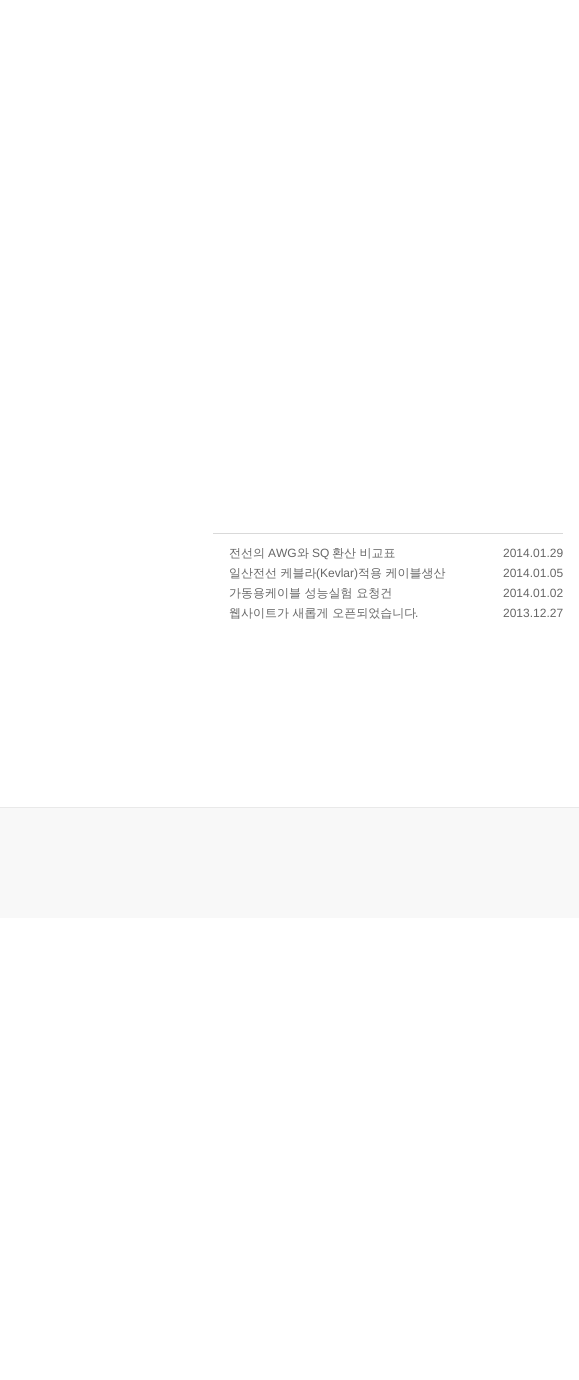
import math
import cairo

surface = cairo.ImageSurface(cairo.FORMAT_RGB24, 579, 1380)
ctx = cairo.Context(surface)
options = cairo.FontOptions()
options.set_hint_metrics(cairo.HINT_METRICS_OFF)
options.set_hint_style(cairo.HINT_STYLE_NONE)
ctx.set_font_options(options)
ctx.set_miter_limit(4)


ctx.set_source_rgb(1, 1, 1)
ctx.paint()
ctx.set_source_rgb(0.851, 0.851, 0.851)
ctx.rectangle(213, 533, 350, 1)
ctx.fill()
ctx.select_font_face("WenQuanYi Zen Hei Medium")
ctx.set_font_size(12)
ctx.set_source_rgb(0.4, 0.4, 0.4)
ctx.move_to(229, 557)
ctx.show_text("전선의")
ctx.select_font_face("Liberation Sans")
ctx.move_to(268, 557)
ctx.show_text("AWG")
ctx.select_font_face("WenQuanYi Zen Hei Medium")
ctx.move_to(297, 557)
ctx.show_text("와")
ctx.select_font_face("Liberation Sans")
ctx.move_to(312, 557)
ctx.show_text("SQ")
ctx.select_font_face("WenQuanYi Zen Hei Medium")
ctx.move_to(332, 557)
ctx.show_text("환산 비교표")
ctx.select_font_face("Liberation Sans")
ctx.move_to(503, 557)
ctx.show_text("2014.01.29")
ctx.select_font_face("WenQuanYi Zen Hei Medium")
ctx.move_to(229, 577)
ctx.show_text("일산전선 케블라")
ctx.select_font_face("Liberation Sans")
ctx.move_to(316, 577)
ctx.show_text("(Kevlar)")
ctx.select_font_face("WenQuanYi Zen Hei Medium")
ctx.move_to(358, 577)
ctx.show_text("적용 케이블생산")
ctx.select_font_face("Liberation Sans")
ctx.move_to(503, 577)
ctx.show_text("2014.01.05")
ctx.select_font_face("WenQuanYi Zen Hei Medium")
ctx.move_to(229, 597)
ctx.show_text("가동용케이블 성능실험 요청건")
ctx.select_font_face("Liberation Sans")
ctx.move_to(503, 597)
ctx.show_text("2014.01.02")
ctx.select_font_face("WenQuanYi Zen Hei Medium")
ctx.move_to(229, 617)
ctx.show_text("웹사이트가 새롭게 오픈되었습니다")
ctx.select_font_face("Liberation Sans")
ctx.move_to(415, 617)
ctx.show_text(".")
ctx.move_to(503, 617)
ctx.show_text("2013.12.27")
ctx.set_source_rgb(0.914, 0.914, 0.914)
ctx.rectangle(0, 807, 579, 1)
ctx.fill()
ctx.set_source_rgb(0.969, 0.969, 0.969)
ctx.rectangle(0, 808, 579, 110)
ctx.fill()
surface.write_to_png("page.png")
